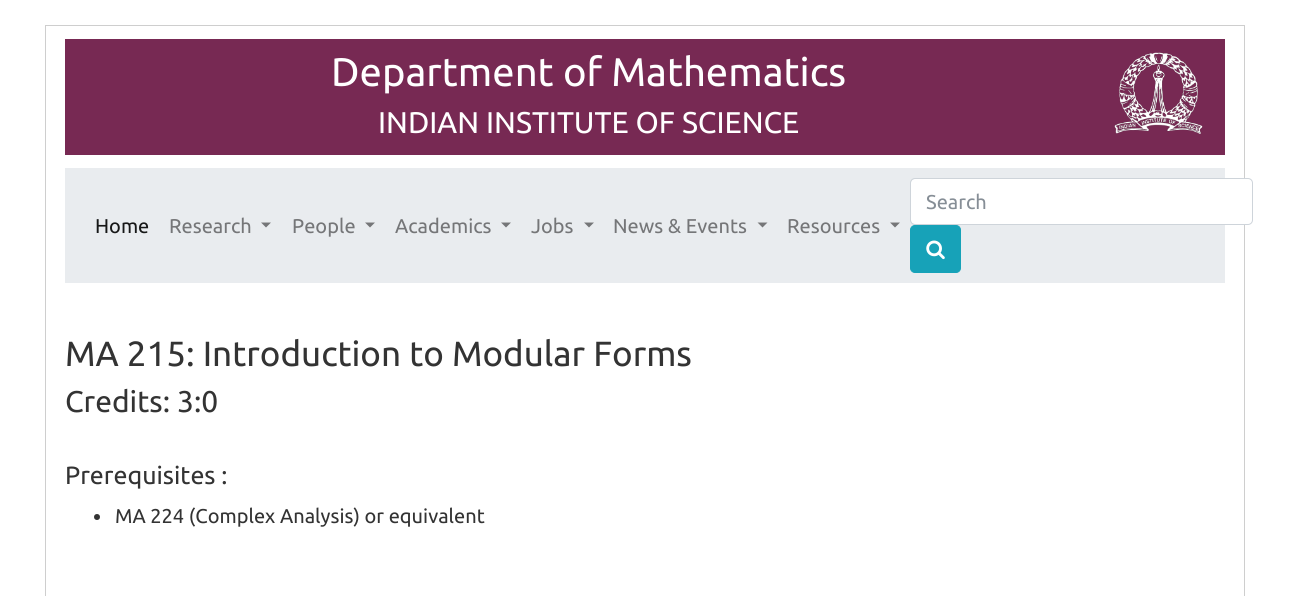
import math
import cairo

surface = cairo.ImageSurface(cairo.FORMAT_RGB24, 1289, 596)
ctx = cairo.Context(surface)
options = cairo.FontOptions()
options.set_hint_metrics(cairo.HINT_METRICS_OFF)
options.set_hint_style(cairo.HINT_STYLE_NONE)
ctx.set_font_options(options)
ctx.set_miter_limit(4)


def round_rect(x, y, w, h, r):
    ctx.new_sub_path()
    for i, (u, v) in enumerate([(x + w - r, y + h - r), (x + r, y + h - r), (x + r, y + r), (x + w - r, y + r)]):
        ctx.arc(u, v, r, i * math.pi / 2, (i + 1) * math.pi / 2)
    ctx.close_path()


def picture(path, x, y, w, h):
    ctx.save()
    ctx.set_source_surface(cairo.ImageSurface.create_from_png(path), x, y)
    ctx.rectangle(x, y, w, h)
    ctx.fill()
    ctx.restore()


ctx.set_source_rgb(1, 1, 1)
ctx.paint()
ctx.rectangle(45.5, 25.5, 1199, 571)
ctx.set_source_rgb(0.808, 0.808, 0.808)
ctx.set_line_width(1)
ctx.stroke()
ctx.set_source_rgb(0.467, 0.161, 0.325)
ctx.rectangle(65, 39, 1160, 116)
ctx.fill()
ctx.select_font_face("Ubuntu")
ctx.set_font_size(40)
ctx.set_source_rgb(1, 1, 1)
ctx.move_to(331, 86)
ctx.show_text("Department of Mathematics")
picture("img1.png", 1114, 52, 89, 82)
ctx.set_font_size(30)
ctx.move_to(378, 133)
ctx.show_text("INDIAN INSTITUTE OF SCIENCE")
ctx.set_source_rgb(0.914, 0.925, 0.937)
ctx.rectangle(65, 168, 1160, 115)
ctx.fill()
ctx.set_source_rgb(1, 1, 1)
round_rect(911, 179, 340, 45, 4)
ctx.fill()
round_rect(910.5, 178.5, 342, 46, 4.5)
ctx.set_source_rgb(0.808, 0.831, 0.855)
ctx.stroke()
ctx.set_font_size(20)
ctx.set_source_rgb(0.525, 0.557, 0.588)
ctx.move_to(926, 209)
ctx.show_text("Search")
ctx.set_source_rgb(0.09, 0.635, 0.722)
round_rect(910.5, 225.5, 50, 47, 4.5)
ctx.fill_preserve()
ctx.stroke()
picture("img2.png", 926, 240, 19, 20)
ctx.set_source_rgb(0.09, 0.094, 0.094)
ctx.move_to(95, 233)
ctx.show_text("Home")
ctx.set_source_rgb(0.459, 0.463, 0.471)
ctx.move_to(169, 233)
ctx.show_text("Research")
ctx.new_path()
ctx.move_to(261, 222.5)
ctx.line_to(271, 222.5)
ctx.line_to(266, 227.5)
ctx.close_path()
ctx.fill()
ctx.move_to(292, 233)
ctx.show_text("People")
ctx.new_path()
ctx.move_to(365, 222.5)
ctx.line_to(375, 222.5)
ctx.line_to(370, 227.5)
ctx.close_path()
ctx.fill()
ctx.move_to(395, 233)
ctx.show_text("Academics")
ctx.new_path()
ctx.move_to(501, 222.5)
ctx.line_to(511, 222.5)
ctx.line_to(506, 227.5)
ctx.close_path()
ctx.fill()
ctx.move_to(531, 233)
ctx.show_text("Jobs")
ctx.new_path()
ctx.move_to(584, 222.5)
ctx.line_to(594, 222.5)
ctx.line_to(589, 227.5)
ctx.close_path()
ctx.fill()
ctx.move_to(613, 233)
ctx.show_text("News & Events")
ctx.new_path()
ctx.move_to(757.5, 222.5)
ctx.line_to(767.5, 222.5)
ctx.line_to(762.5, 227.5)
ctx.close_path()
ctx.fill()
ctx.move_to(787, 233)
ctx.show_text("Resources")
ctx.new_path()
ctx.move_to(890, 222.5)
ctx.line_to(900, 222.5)
ctx.line_to(895, 227.5)
ctx.close_path()
ctx.fill()
ctx.set_font_size(35)
ctx.set_source_rgb(0.2, 0.2, 0.2)
ctx.move_to(65, 366)
ctx.show_text("MA 215: Introduction to Modular Forms")
ctx.set_font_size(30)
ctx.move_to(65, 412)
ctx.show_text("Credits: 3:0")
ctx.set_font_size(25)
ctx.move_to(65, 484)
ctx.show_text("Prerequisites :")
ctx.new_path()
ctx.arc(97, 517, 3, 0, 2 * math.pi)
ctx.fill()
ctx.set_font_size(20)
ctx.move_to(115, 523)
ctx.show_text("MA 224 (Complex Analysis) or equivalent")
surface.write_to_png("page.png")
